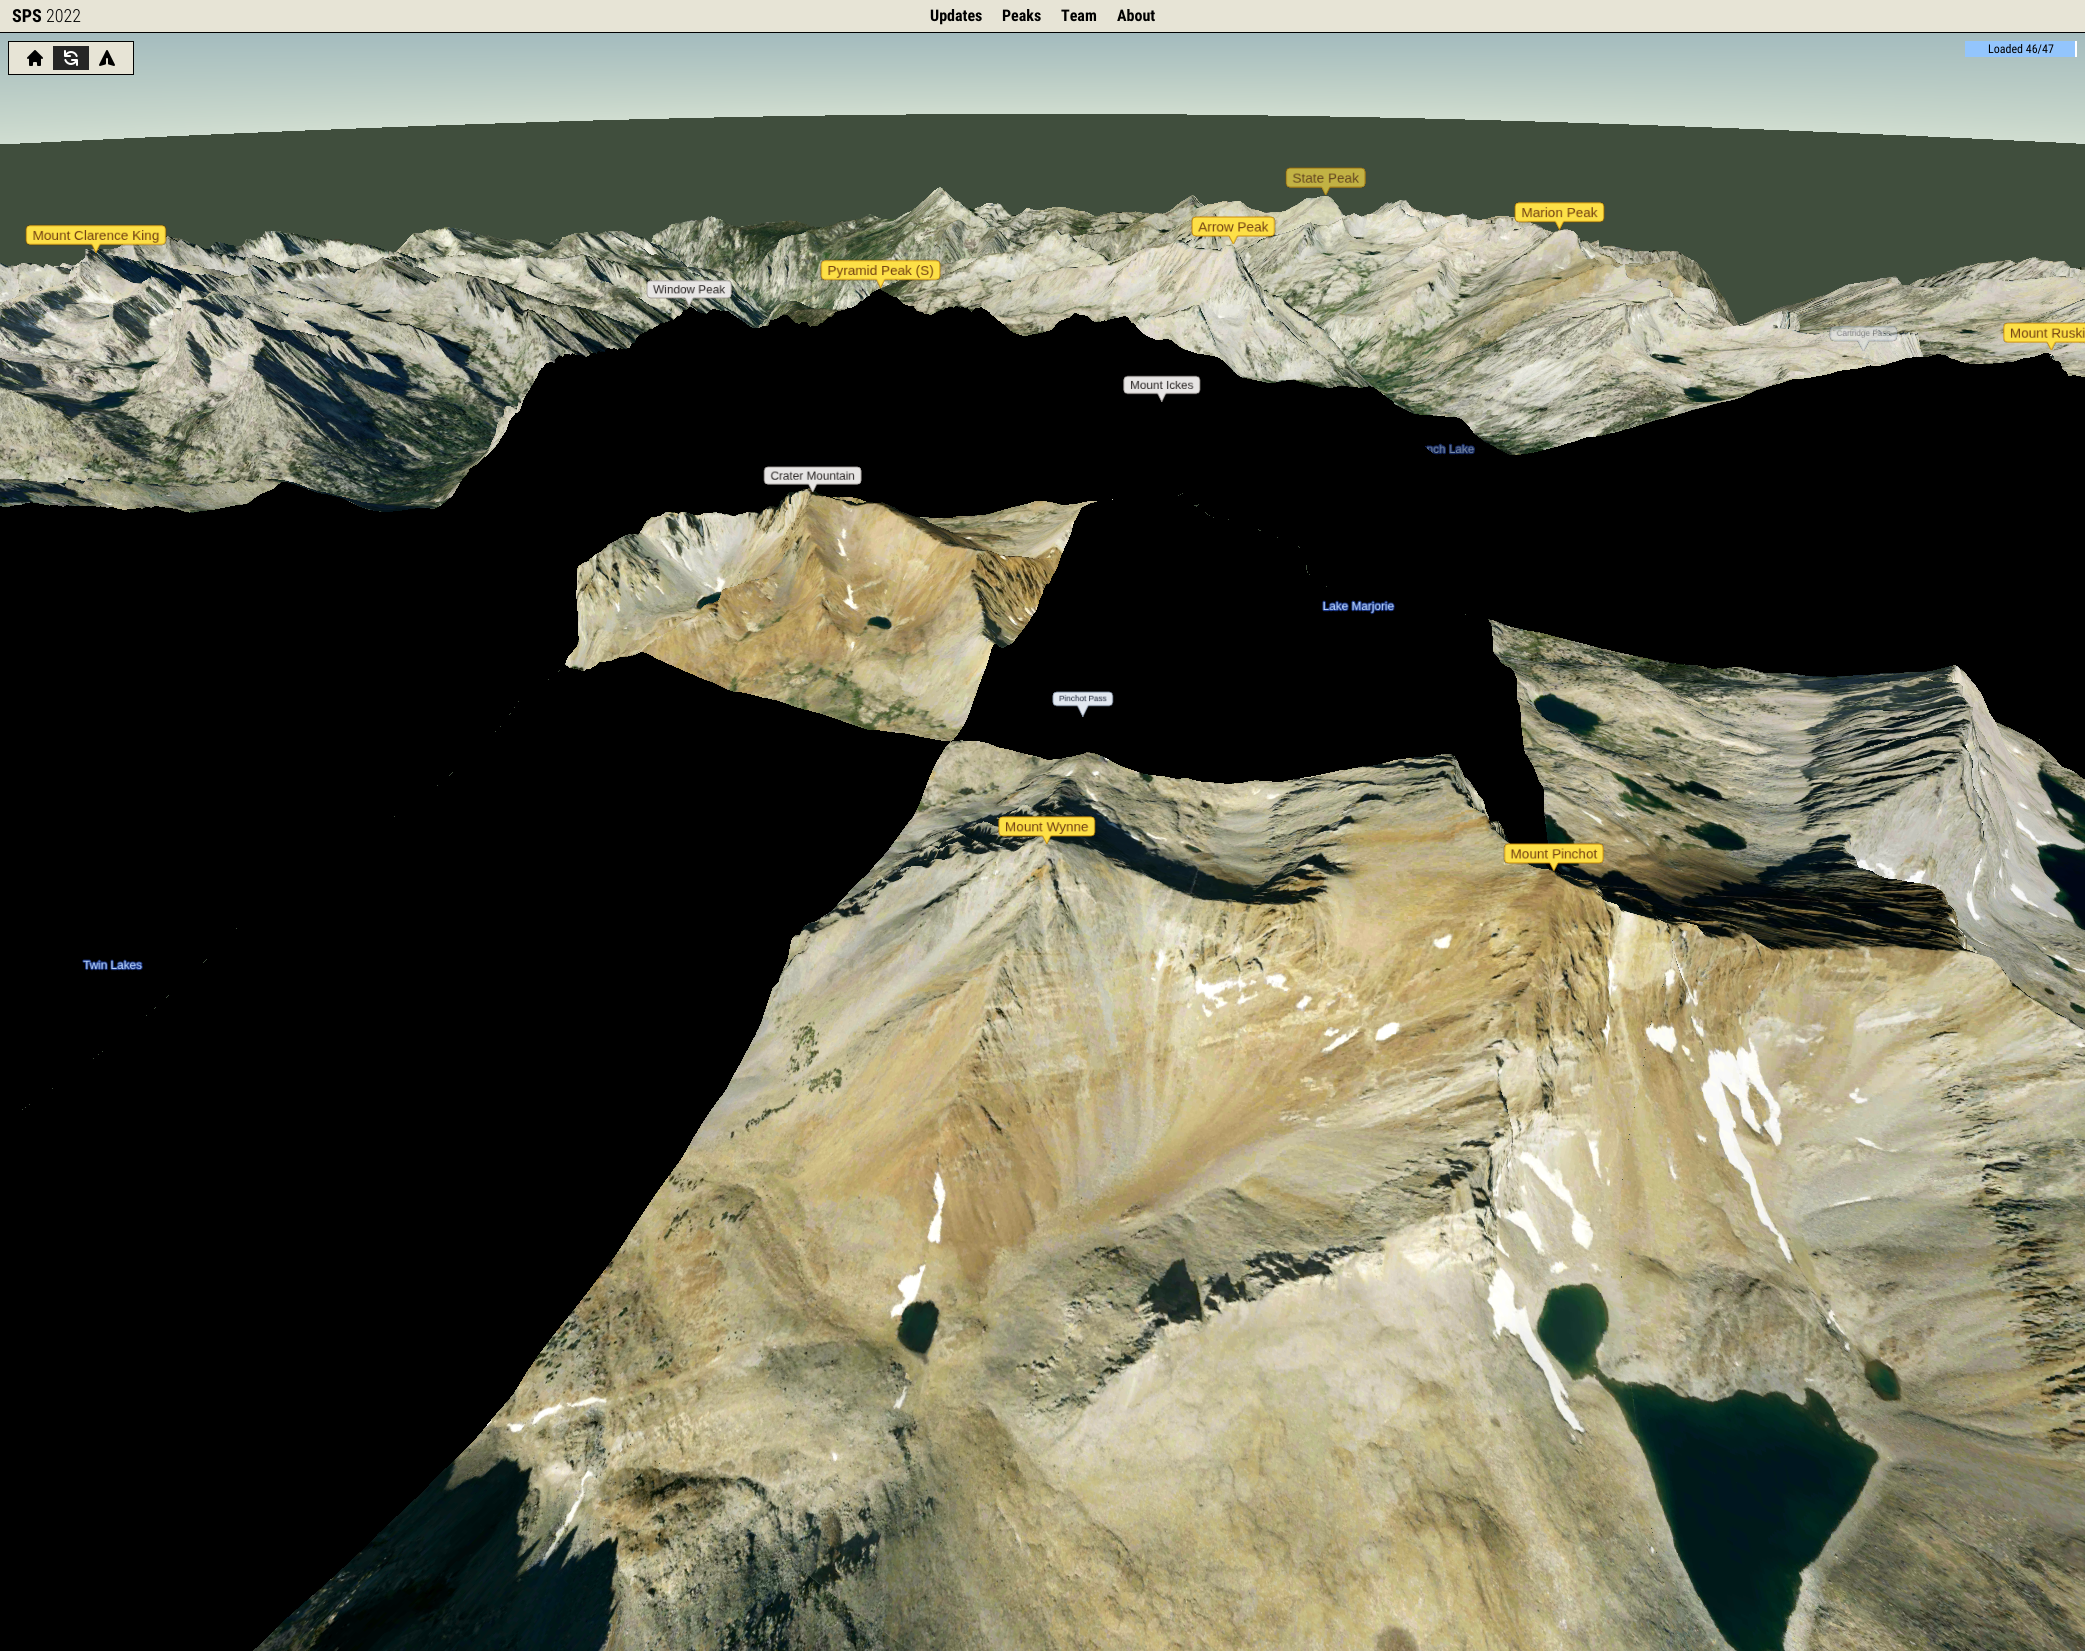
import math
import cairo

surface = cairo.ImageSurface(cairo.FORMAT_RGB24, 2085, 1651)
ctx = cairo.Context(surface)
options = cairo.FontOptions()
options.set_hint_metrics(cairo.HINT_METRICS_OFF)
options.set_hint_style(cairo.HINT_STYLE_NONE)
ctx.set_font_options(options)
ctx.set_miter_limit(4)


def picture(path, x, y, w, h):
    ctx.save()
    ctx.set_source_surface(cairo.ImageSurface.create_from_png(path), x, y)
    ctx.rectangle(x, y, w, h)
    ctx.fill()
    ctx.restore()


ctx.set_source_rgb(0.906, 0.894, 0.839)
ctx.paint()
ctx.set_source_rgb(0, 0, 0)
ctx.rectangle(0, 32, 2085, 1)
ctx.fill()
ctx.select_font_face("Roboto Condensed", cairo.FONT_SLANT_NORMAL, cairo.FONT_WEIGHT_BOLD)
ctx.set_font_size(18)
ctx.move_to(12, 22)
ctx.show_text("SPS")
ctx.select_font_face("Roboto Condensed Light")
ctx.move_to(46, 22)
ctx.show_text("2022")
ctx.select_font_face("Roboto Condensed", cairo.FONT_SLANT_NORMAL, cairo.FONT_WEIGHT_BOLD)
ctx.set_font_size(16)
ctx.move_to(930, 21)
ctx.show_text("Updates")
ctx.move_to(1002, 21)
ctx.show_text("Peaks")
ctx.move_to(1061, 21)
ctx.show_text("Team")
ctx.move_to(1117, 21)
ctx.show_text("About")
picture("img1.png", 0, 33, 2085, 1618)
ctx.set_source_rgb(0.906, 0.894, 0.839)
ctx.rectangle(8.5, 41.5, 125, 33)
ctx.fill_preserve()
ctx.set_source_rgb(0, 0, 0)
ctx.set_line_width(1)
ctx.stroke()
picture("img2.png", 27, 50, 16, 16)
ctx.set_source_rgb(0.149, 0.149, 0.149)
ctx.rectangle(53, 46, 36, 24)
ctx.fill()
picture("img3.png", 64, 50, 14, 16)
picture("img4.png", 99, 50, 16, 16)
ctx.set_source_rgb(1, 1, 1)
ctx.rectangle(2075, 41, 2, 16)
ctx.fill()
ctx.set_source_rgb(0.576, 0.773, 0.992)
ctx.rectangle(1965, 41, 110, 16)
ctx.fill()
ctx.select_font_face("Roboto Condensed")
ctx.set_font_size(12)
ctx.set_source_rgb(0, 0, 0)
ctx.move_to(1988, 53)
ctx.show_text("Loaded 46/47")
surface.write_to_png("page.png")
